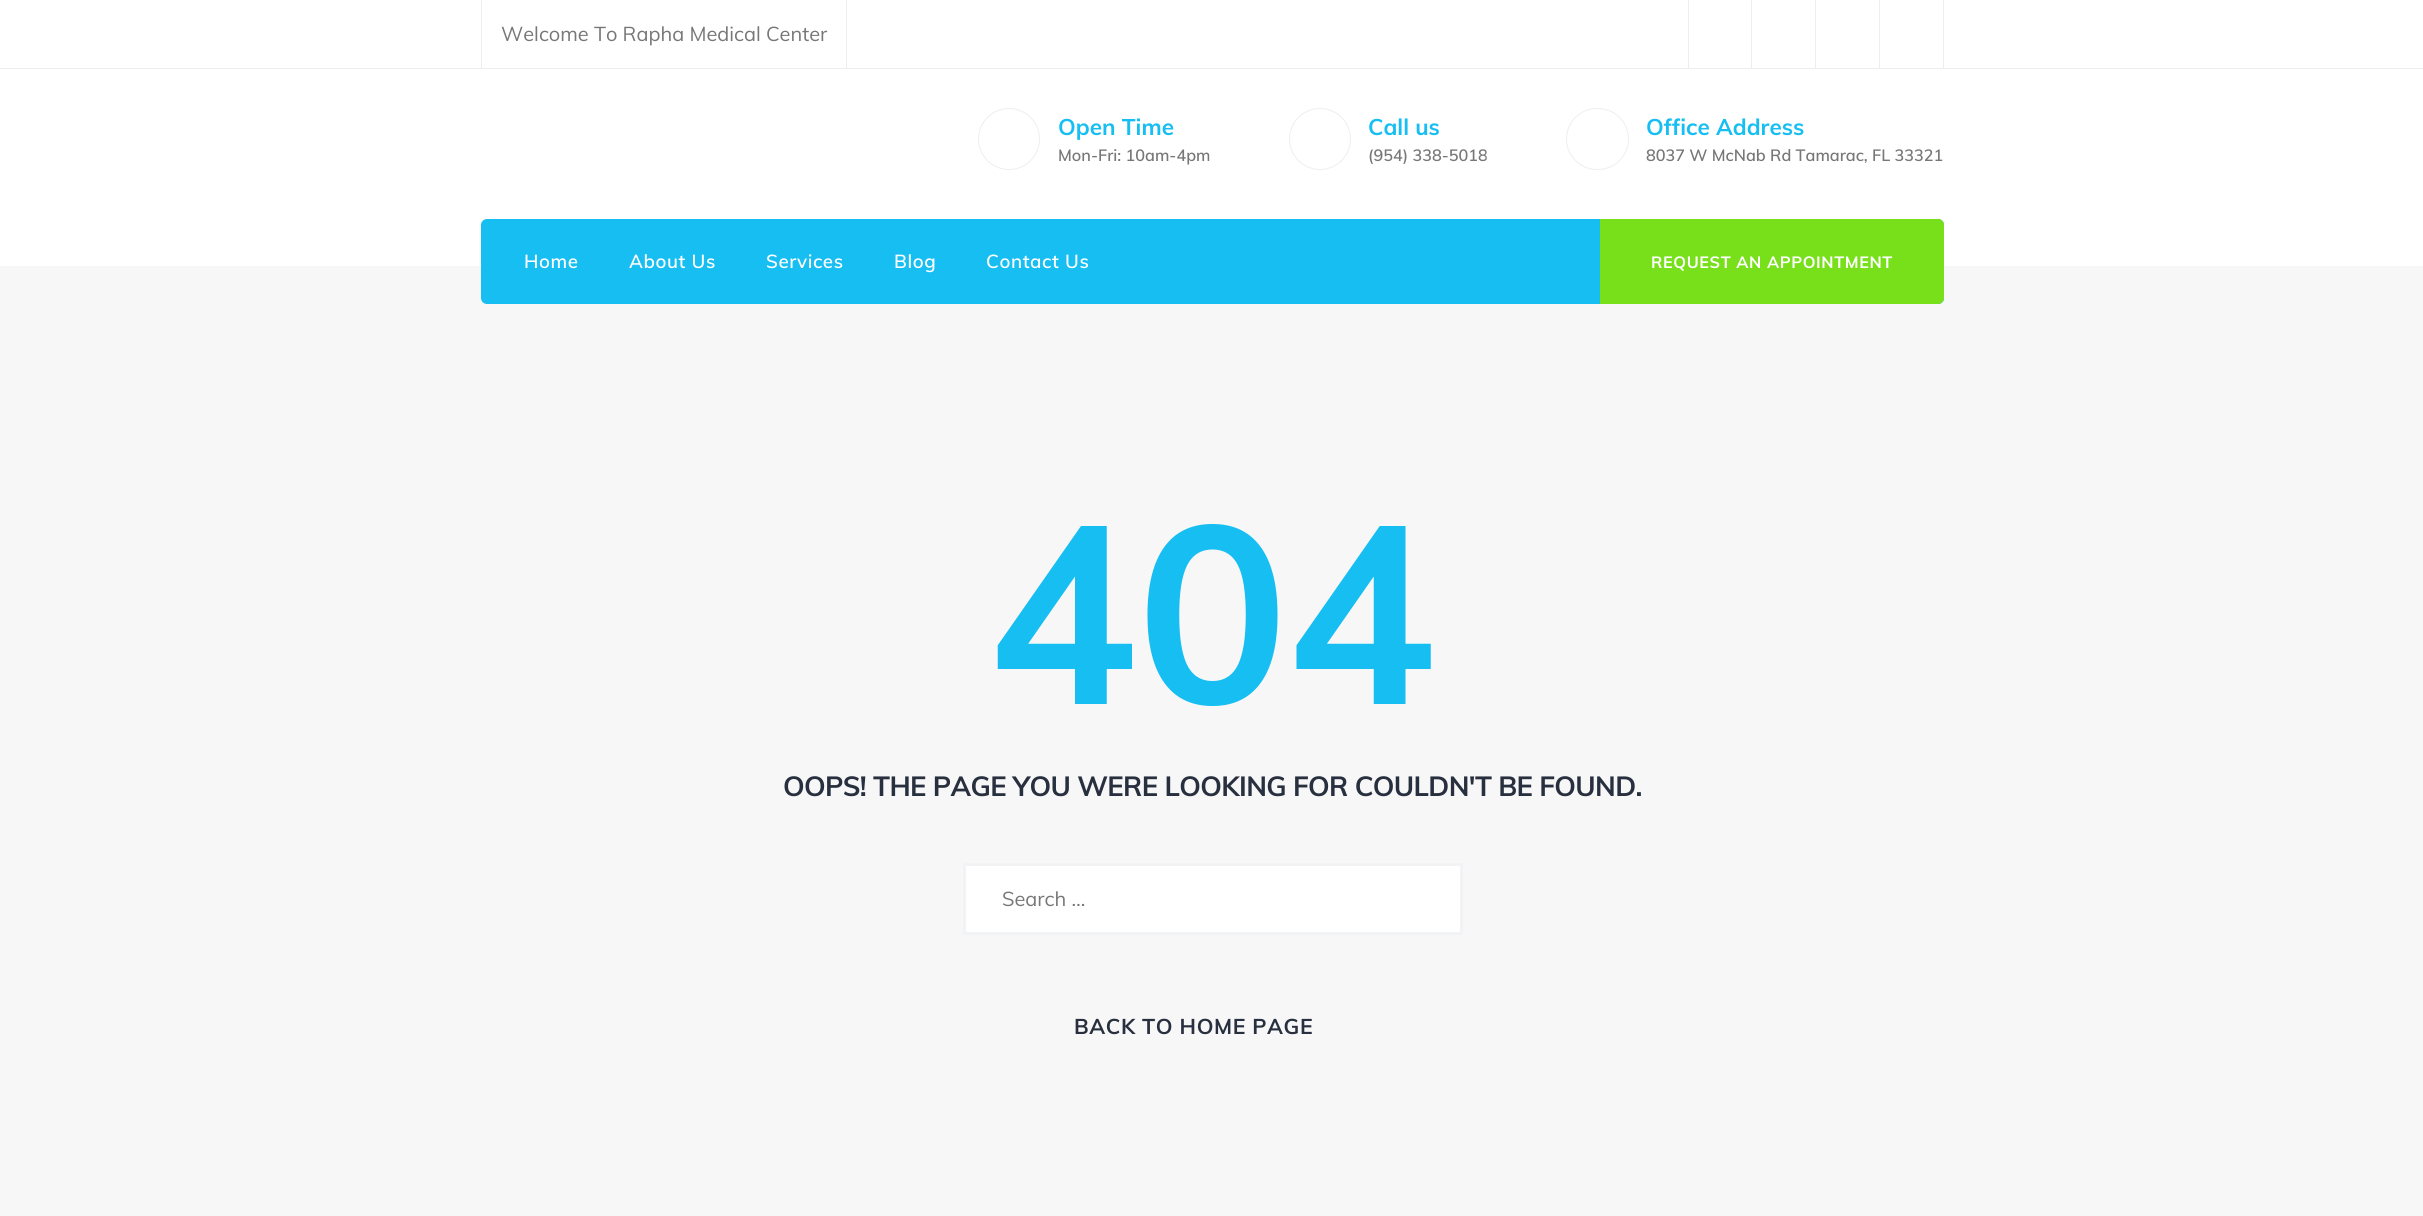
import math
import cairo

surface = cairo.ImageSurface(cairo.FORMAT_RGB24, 2423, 1216)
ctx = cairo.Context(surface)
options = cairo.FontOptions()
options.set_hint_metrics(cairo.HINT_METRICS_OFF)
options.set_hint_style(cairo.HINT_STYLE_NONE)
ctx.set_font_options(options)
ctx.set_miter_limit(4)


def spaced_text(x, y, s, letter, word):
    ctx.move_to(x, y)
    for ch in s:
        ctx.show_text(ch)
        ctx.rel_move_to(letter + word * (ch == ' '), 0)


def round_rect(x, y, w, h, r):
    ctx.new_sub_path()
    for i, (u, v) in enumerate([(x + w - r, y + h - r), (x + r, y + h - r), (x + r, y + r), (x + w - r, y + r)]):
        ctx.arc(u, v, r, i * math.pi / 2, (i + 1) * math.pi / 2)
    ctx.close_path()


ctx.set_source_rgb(1, 1, 1)
ctx.paint()
ctx.set_source_rgb(0.933, 0.933, 0.933)
ctx.rectangle(0, 68, 2423, 1)
ctx.fill()
ctx.rectangle(846, 0, 1, 69)
ctx.fill()
ctx.rectangle(481, 0, 1, 69)
ctx.fill()
ctx.select_font_face("Muli")
ctx.set_font_size(20)
ctx.set_source_rgb(0.467, 0.467, 0.467)
ctx.move_to(501, 41)
ctx.show_text("Welcome To Rapha Medical Center")
ctx.set_source_rgb(0.933, 0.933, 0.933)
ctx.rectangle(1688, 0, 1, 69)
ctx.fill()
ctx.rectangle(1751, 0, 1, 69)
ctx.fill()
ctx.rectangle(1815, 0, 1, 69)
ctx.fill()
ctx.rectangle(1879, 0, 1, 69)
ctx.fill()
ctx.rectangle(1943, 0, 1, 69)
ctx.fill()
ctx.arc(1009, 139, 30.5, 0, 2 * math.pi)
ctx.set_line_width(1)
ctx.stroke()
ctx.select_font_face("Muli", cairo.FONT_SLANT_NORMAL, cairo.FONT_WEIGHT_BOLD)
ctx.set_font_size(22.5)
ctx.set_source_rgb(0.086, 0.745, 0.949)
ctx.move_to(1058, 135)
ctx.show_text("Open Time")
ctx.select_font_face("Muli SemiBold")
ctx.set_font_size(16.25)
ctx.set_source_rgb(0.467, 0.467, 0.467)
ctx.move_to(1058, 161)
ctx.show_text("Mon-Fri: 10am-4pm")
ctx.set_source_rgba(1, 1, 1, 0.3)
ctx.rectangle(1209, 154, 1, 7)
ctx.fill()
ctx.arc(1320, 139, 30.5, 0, 2 * math.pi)
ctx.set_source_rgb(0.933, 0.933, 0.933)
ctx.stroke()
ctx.select_font_face("Muli", cairo.FONT_SLANT_NORMAL, cairo.FONT_WEIGHT_BOLD)
ctx.set_font_size(22.5)
ctx.set_source_rgb(0.086, 0.745, 0.949)
ctx.move_to(1368, 135)
ctx.show_text("Call us")
ctx.select_font_face("Muli SemiBold")
ctx.set_font_size(16.25)
ctx.set_source_rgb(0.467, 0.467, 0.467)
ctx.move_to(1368, 161)
ctx.show_text("(954) 338-5018")
ctx.set_source_rgba(1, 1, 1, 0.3)
ctx.rectangle(1486, 150, 1, 11)
ctx.fill()
round_rect(1566.5, 108.5, 62, 61, 30.5)
ctx.set_source_rgb(0.933, 0.933, 0.933)
ctx.stroke()
ctx.select_font_face("Muli", cairo.FONT_SLANT_NORMAL, cairo.FONT_WEIGHT_BOLD)
ctx.set_font_size(22.5)
ctx.set_source_rgb(0.086, 0.745, 0.949)
ctx.move_to(1646, 135)
ctx.show_text("Office Address")
ctx.select_font_face("Muli SemiBold")
ctx.set_font_size(16.25)
ctx.set_source_rgb(0.467, 0.467, 0.467)
ctx.move_to(1646, 161)
ctx.show_text("8037 W McNab Rd Tamarac, FL 33321")
ctx.set_source_rgb(0.965, 0.965, 0.965)
ctx.rectangle(0, 266, 2423, 950)
ctx.fill()
ctx.set_source_rgb(0.086, 0.745, 0.949)
round_rect(481, 219, 1463, 85, 6)
ctx.fill()
ctx.set_font_size(18.75)
ctx.set_source_rgb(1, 1, 1)
spaced_text(524, 268, "Home", 0.6, 0)
spaced_text(629, 268, "About Us", 0.6, 0)
spaced_text(766, 268, "Services", 0.6, 0)
spaced_text(894, 268, "Blog", 0.6, 0)
spaced_text(986, 268, "Contact Us", 0.6, 0)
ctx.set_source_rgb(0.467, 0.878, 0.106)
ctx.new_path()
ctx.move_to(1600, 219)
ctx.line_to(1938, 219)
ctx.curve_to(1941.5, 219, 1944, 221.5, 1944, 225)
ctx.line_to(1944, 298)
ctx.curve_to(1944, 301.5, 1941.5, 304, 1938, 304)
ctx.line_to(1600, 304)
ctx.close_path()
ctx.fill()
ctx.select_font_face("Muli", cairo.FONT_SLANT_NORMAL, cairo.FONT_WEIGHT_BOLD)
ctx.set_font_size(16.25)
ctx.set_source_rgb(1, 1, 1)
spaced_text(1651, 268, "REQUEST AN APPOINTMENT", 0.6, 0)
ctx.set_font_size(250)
ctx.set_source_rgb(0.086, 0.745, 0.949)
spaced_text(988, 704, "404", -0.62, 0)
ctx.set_font_size(27.5)
ctx.set_source_rgb(0.157, 0.188, 0.247)
spaced_text(783, 796, "OOPS! THE PAGE YOU WERE LOOKING FOR COULDN'T BE FOUND.", -0.62, 0)
ctx.set_source_rgb(1, 1, 1)
ctx.rectangle(964.5, 864.5, 497, 69)
ctx.fill_preserve()
ctx.set_source_rgb(0.949, 0.953, 0.957)
ctx.set_line_width(3)
ctx.stroke()
ctx.select_font_face("Muli")
ctx.set_font_size(20)
ctx.set_source_rgb(0.467, 0.467, 0.467)
ctx.move_to(1002, 906)
ctx.show_text("Search …")
ctx.select_font_face("Muli", cairo.FONT_SLANT_NORMAL, cairo.FONT_WEIGHT_BOLD)
ctx.set_font_size(21.25)
ctx.set_source_rgb(0.157, 0.188, 0.247)
spaced_text(1074, 1034, "BACK TO HOME PAGE", 0.6, 0)
surface.write_to_png("page.png")
